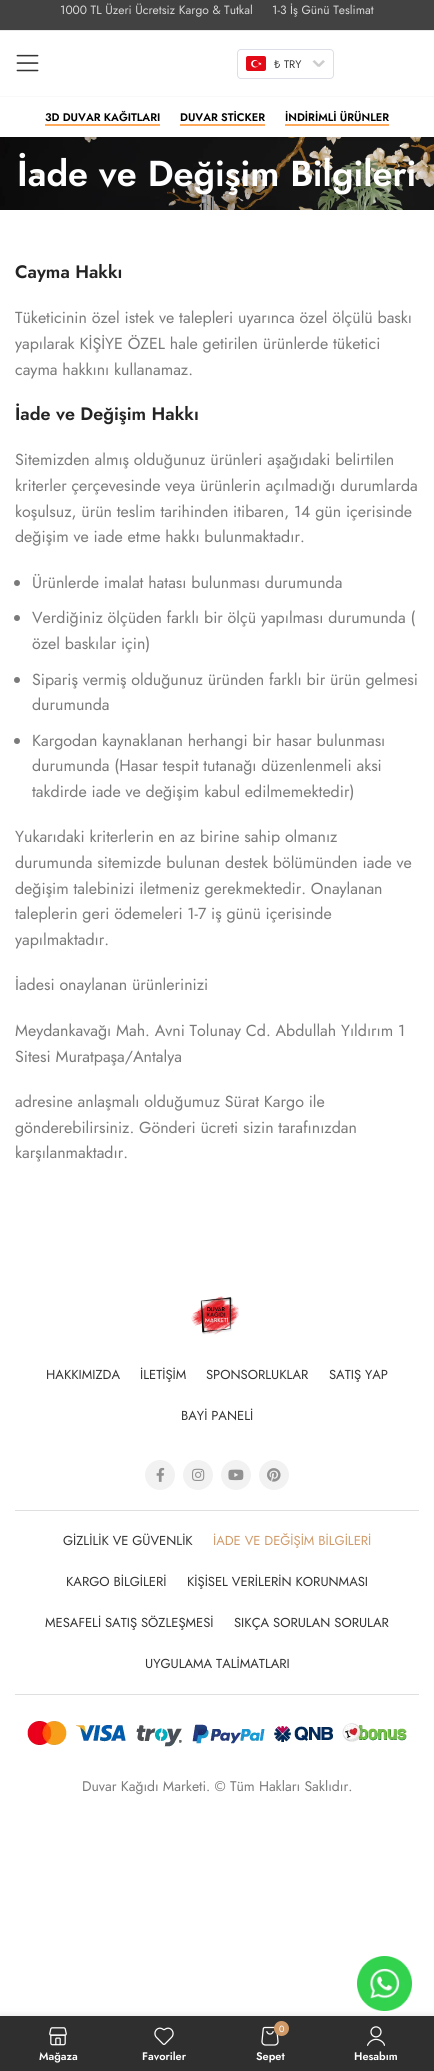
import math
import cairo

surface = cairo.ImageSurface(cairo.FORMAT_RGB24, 434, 2071)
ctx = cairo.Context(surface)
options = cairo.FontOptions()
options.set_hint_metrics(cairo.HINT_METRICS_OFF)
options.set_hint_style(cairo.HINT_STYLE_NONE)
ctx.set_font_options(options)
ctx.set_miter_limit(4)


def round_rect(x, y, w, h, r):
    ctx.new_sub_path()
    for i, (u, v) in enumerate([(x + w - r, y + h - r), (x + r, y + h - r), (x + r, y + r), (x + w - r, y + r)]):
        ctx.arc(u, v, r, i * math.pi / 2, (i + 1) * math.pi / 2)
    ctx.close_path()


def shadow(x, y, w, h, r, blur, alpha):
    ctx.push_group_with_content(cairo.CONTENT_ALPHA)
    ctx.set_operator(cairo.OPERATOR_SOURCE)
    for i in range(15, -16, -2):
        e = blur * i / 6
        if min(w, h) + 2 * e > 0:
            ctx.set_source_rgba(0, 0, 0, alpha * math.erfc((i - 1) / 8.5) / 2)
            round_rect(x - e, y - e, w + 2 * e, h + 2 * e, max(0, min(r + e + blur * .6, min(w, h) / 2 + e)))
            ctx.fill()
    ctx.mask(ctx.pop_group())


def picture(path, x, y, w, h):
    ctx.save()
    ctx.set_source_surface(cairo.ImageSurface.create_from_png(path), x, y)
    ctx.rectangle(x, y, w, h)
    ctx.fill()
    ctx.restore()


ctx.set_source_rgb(1, 1, 1)
ctx.paint()
picture("img3.png", 0, 137, 434, 73)
ctx.save()
ctx.rectangle(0, 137, 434, 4)
ctx.clip()
ctx.set_source_rgb(0, 0, 0)
shadow(0, 2, 434, 137, 0, 2.5, 0.1)
ctx.restore()
ctx.set_source_rgb(0.259, 0.259, 0.259)
ctx.rectangle(0, 0, 434, 30)
ctx.fill()
ctx.set_source_rgb(0.914, 0.914, 0.914)
ctx.rectangle(0, 30, 434, 1)
ctx.fill()
ctx.select_font_face("Jost")
ctx.set_font_size(12)
ctx.set_source_rgb(0.851, 0.851, 0.851)
ctx.move_to(60, 14)
ctx.show_text("1000 TL Üzeri Ücretsiz Kargo & Tutkal")
ctx.move_to(272, 14)
ctx.show_text("1-3 İş Günü Teslimat")
ctx.set_source_rgb(0.976, 0.976, 0.976)
ctx.rectangle(0, 96, 434, 1)
ctx.fill()
picture("img1.png", 16, 54, 23, 18)
round_rect(237.5, 49.5, 96, 29, 3.5)
ctx.set_source_rgb(0.863, 0.875, 0.902)
ctx.set_line_width(1)
ctx.stroke()
picture("img2.png", 246, 56, 20, 15)
ctx.select_font_face("Noto Sans")
ctx.set_font_size(11)
ctx.set_source_rgb(0.231, 0.231, 0.231)
ctx.move_to(274, 68)
ctx.show_text("₺")
ctx.select_font_face("Jost")
ctx.move_to(284, 68)
ctx.show_text("TRY")
ctx.set_source_rgb(0.8, 0.8, 0.8)
ctx.new_path()
ctx.move_to(312.5, 61.5)
ctx.line_to(314.5, 60)
ctx.line_to(320, 65.5)
ctx.line_to(318, 67)
ctx.close_path()
ctx.fill()
ctx.new_path()
ctx.move_to(323, 60)
ctx.line_to(325, 61.5)
ctx.line_to(319.5, 67)
ctx.line_to(317.5, 65.5)
ctx.close_path()
ctx.fill()
ctx.set_source_rgb(1, 0.667, 0.357)
ctx.rectangle(45, 124, 115, 2)
ctx.fill()
ctx.select_font_face("Jost SemiBold")
ctx.set_source_rgb(0, 0, 0)
ctx.move_to(45, 121)
ctx.show_text("3D DUVAR KAĞITLARI")
ctx.set_source_rgb(1, 0.667, 0.357)
ctx.rectangle(180, 124, 85, 2)
ctx.fill()
ctx.set_source_rgb(0, 0, 0)
ctx.move_to(180, 121)
ctx.show_text("DUVAR STİCKER")
ctx.set_source_rgb(1, 0.667, 0.357)
ctx.rectangle(285, 124, 104, 2)
ctx.fill()
ctx.set_source_rgb(0, 0, 0)
ctx.move_to(285, 121)
ctx.show_text("İNDİRİMLİ ÜRÜNLER")
ctx.set_font_size(36)
ctx.set_source_rgb(1, 1, 1)
ctx.move_to(17, 186)
ctx.show_text("İade ve Değişim Bilgileri")
ctx.set_font_size(18)
ctx.set_source_rgb(0.141, 0.141, 0.141)
ctx.move_to(15, 278)
ctx.show_text("Cayma Hakkı")
ctx.select_font_face("Jost")
ctx.set_font_size(16)
ctx.set_source_rgb(0.478, 0.478, 0.478)
ctx.move_to(15, 323)
ctx.show_text("Tüketicinin özel istek ve talepleri uyarınca özel ölçülü baskı")
ctx.move_to(15, 349)
ctx.show_text("yapılarak KİŞİYE ÖZEL hale getirilen ürünlerde tüketici")
ctx.move_to(15, 375)
ctx.show_text("cayma hakkını kullanamaz.")
ctx.select_font_face("Jost SemiBold")
ctx.set_font_size(18)
ctx.set_source_rgb(0.141, 0.141, 0.141)
ctx.move_to(15, 420)
ctx.show_text("İade ve Değişim Hakkı")
ctx.select_font_face("Jost")
ctx.set_font_size(16)
ctx.set_source_rgb(0.478, 0.478, 0.478)
ctx.move_to(15, 465)
ctx.show_text("Sitemizden almış olduğunuz ürünleri aşağıdaki belirtilen")
ctx.move_to(15, 491)
ctx.show_text("kriterler çerçevesinde veya ürünlerin açılmadığı durumlarda")
ctx.move_to(15, 517)
ctx.show_text("koşulsuz, ürün teslim tarihinden itibaren, 14 gün içerisinde")
ctx.move_to(15, 542)
ctx.show_text("değişim ve iade etme hakkı bulunmaktadır.")
ctx.new_path()
ctx.arc(17, 583, 3, 0, 2 * math.pi)
ctx.fill()
ctx.move_to(32, 588)
ctx.show_text("Ürünlerde imalat hatası bulunması durumunda")
ctx.new_path()
ctx.arc(17, 618, 3, 0, 2 * math.pi)
ctx.fill()
ctx.move_to(32, 623)
ctx.show_text("Verdiğiniz ölçüden farklı bir ölçü yapılması durumunda (")
ctx.move_to(32, 649)
ctx.show_text("özel baskılar için)")
ctx.new_path()
ctx.arc(17, 680, 3, 0, 2 * math.pi)
ctx.fill()
ctx.move_to(32, 685)
ctx.show_text("Sipariş vermiş olduğunuz üründen farklı bir ürün gelmesi")
ctx.move_to(32, 710)
ctx.show_text("durumunda")
ctx.new_path()
ctx.arc(17, 741, 3, 0, 2 * math.pi)
ctx.fill()
ctx.move_to(32, 746)
ctx.show_text("Kargodan kaynaklanan herhangi bir hasar bulunması")
ctx.move_to(32, 771)
ctx.show_text("durumunda (Hasar tespit tutanağı düzenlenmeli aksi")
ctx.move_to(32, 797)
ctx.show_text("takdirde iade ve değişim kabul edilmemektedir)")
ctx.move_to(15, 842)
ctx.show_text("Yukarıdaki kriterlerin en az birine sahip olmanız")
ctx.move_to(15, 868)
ctx.show_text("durumunda sitemizde bulunan destek bölümünden iade ve")
ctx.move_to(15, 894)
ctx.show_text("değişim talebinizi iletmeniz gerekmektedir. Onaylanan")
ctx.move_to(15, 919)
ctx.show_text("taleplerin geri ödemeleri 1-7 iş günü içerisinde")
ctx.move_to(15, 945)
ctx.show_text("yapılmaktadır.")
ctx.move_to(15, 990)
ctx.show_text("İadesi onaylanan ürünlerinizi")
ctx.move_to(15, 1036)
ctx.show_text("Meydankavağı Mah. Avni Tolunay Cd. Abdullah Yıldırım 1")
ctx.move_to(15, 1062)
ctx.show_text("Sitesi Muratpaşa/Antalya")
ctx.move_to(15, 1107)
ctx.show_text("adresine anlaşmalı olduğumuz Sürat Kargo ile")
ctx.move_to(15, 1133)
ctx.show_text("gönderebilirsiniz. Gönderi ücreti sizin tarafınızdan")
ctx.move_to(15, 1158)
ctx.show_text("karşılanmaktadır.")
picture("img4.png", 191, 1296, 48, 39)
ctx.set_font_size(13)
ctx.set_source_rgb(0.2, 0.2, 0.2)
ctx.move_to(46, 1379)
ctx.show_text("HAKKIMIZDA")
ctx.move_to(140, 1379)
ctx.show_text("İLETİŞİM")
ctx.move_to(206, 1379)
ctx.show_text("SPONSORLUKLAR")
ctx.move_to(329, 1379)
ctx.show_text("SATIŞ YAP")
ctx.move_to(181, 1420)
ctx.show_text("BAYİ PANELİ")
ctx.set_source_rgb(0.949, 0.949, 0.949)
ctx.new_path()
ctx.arc(160, 1475, 15, 0, 2 * math.pi)
ctx.fill()
picture("img5.png", 156, 1467, 9, 15)
ctx.arc(198, 1475, 15, 0, 2 * math.pi)
ctx.fill()
picture("img6.png", 192, 1468, 13, 13)
ctx.arc(236, 1475, 15, 0, 2 * math.pi)
ctx.fill()
picture("img7.png", 228, 1469, 16, 12)
ctx.arc(274, 1475, 15, 0, 2 * math.pi)
ctx.fill()
picture("img8.png", 267, 1468, 14, 14)
ctx.set_source_rgb(0.875, 0.875, 0.875)
ctx.rectangle(15, 1510, 404, 1)
ctx.fill()
ctx.rectangle(15, 1694, 404, 1)
ctx.fill()
ctx.set_source_rgb(0.2, 0.2, 0.2)
ctx.move_to(63, 1545)
ctx.show_text("GİZLİLİK VE GÜVENLİK")
ctx.set_source_rgb(0.816, 0.604, 0.408)
ctx.move_to(213, 1545)
ctx.show_text("İADE VE DEĞİŞİM BİLGİLERİ")
ctx.set_source_rgb(0.2, 0.2, 0.2)
ctx.move_to(66, 1586)
ctx.show_text("KARGO BİLGİLERİ")
ctx.move_to(187, 1586)
ctx.show_text("KİŞİSEL VERİLERİN KORUNMASI")
ctx.move_to(45, 1627)
ctx.show_text("MESAFELİ SATIŞ SÖZLEŞMESİ")
ctx.move_to(234, 1627)
ctx.show_text("SIKÇA SORULAN SORULAR")
ctx.move_to(145, 1668)
ctx.show_text("UYGULAMA TALİMATLARI")
picture("img9.png", 27, 1721, 380, 26)
ctx.set_font_size(14)
ctx.set_source_rgb(0.478, 0.478, 0.478)
ctx.move_to(82, 1791)
ctx.show_text("Duvar Kağıdı Marketi. © Tüm Hakları Saklıdır.")
ctx.set_source_rgb(0, 0, 0)
shadow(0, 2016, 434, 55, 0, 4.5, 0.12)
picture("img10.png", 357, 1956, 55, 55)
ctx.set_source_rgb(0.184, 0.184, 0.184)
ctx.rectangle(0, 2016, 434, 55)
ctx.fill()
picture("img11.png", 49, 2027, 18, 19)
ctx.select_font_face("Jost SemiBold")
ctx.set_font_size(11)
ctx.set_source_rgb(1, 1, 1)
ctx.move_to(39, 2060)
ctx.show_text("Mağaza")
picture("img12.png", 154, 2027, 20, 18)
ctx.move_to(142, 2060)
ctx.show_text("Favoriler")
picture("img13.png", 261, 2026, 18, 20)
ctx.set_source_rgb(0.816, 0.604, 0.408)
ctx.arc(281.5, 2028.5, 7.5, 0, 2 * math.pi)
ctx.fill()
ctx.select_font_face("Jost")
ctx.set_font_size(9)
ctx.set_source_rgb(1, 1, 1)
ctx.move_to(279, 2032)
ctx.show_text("0")
ctx.select_font_face("Jost SemiBold")
ctx.set_font_size(11)
ctx.move_to(256, 2060)
ctx.show_text("Sepet")
picture("img14.png", 367, 2026, 18, 20)
ctx.move_to(354, 2060)
ctx.show_text("Hesabım")
surface.write_to_png("page.png")
